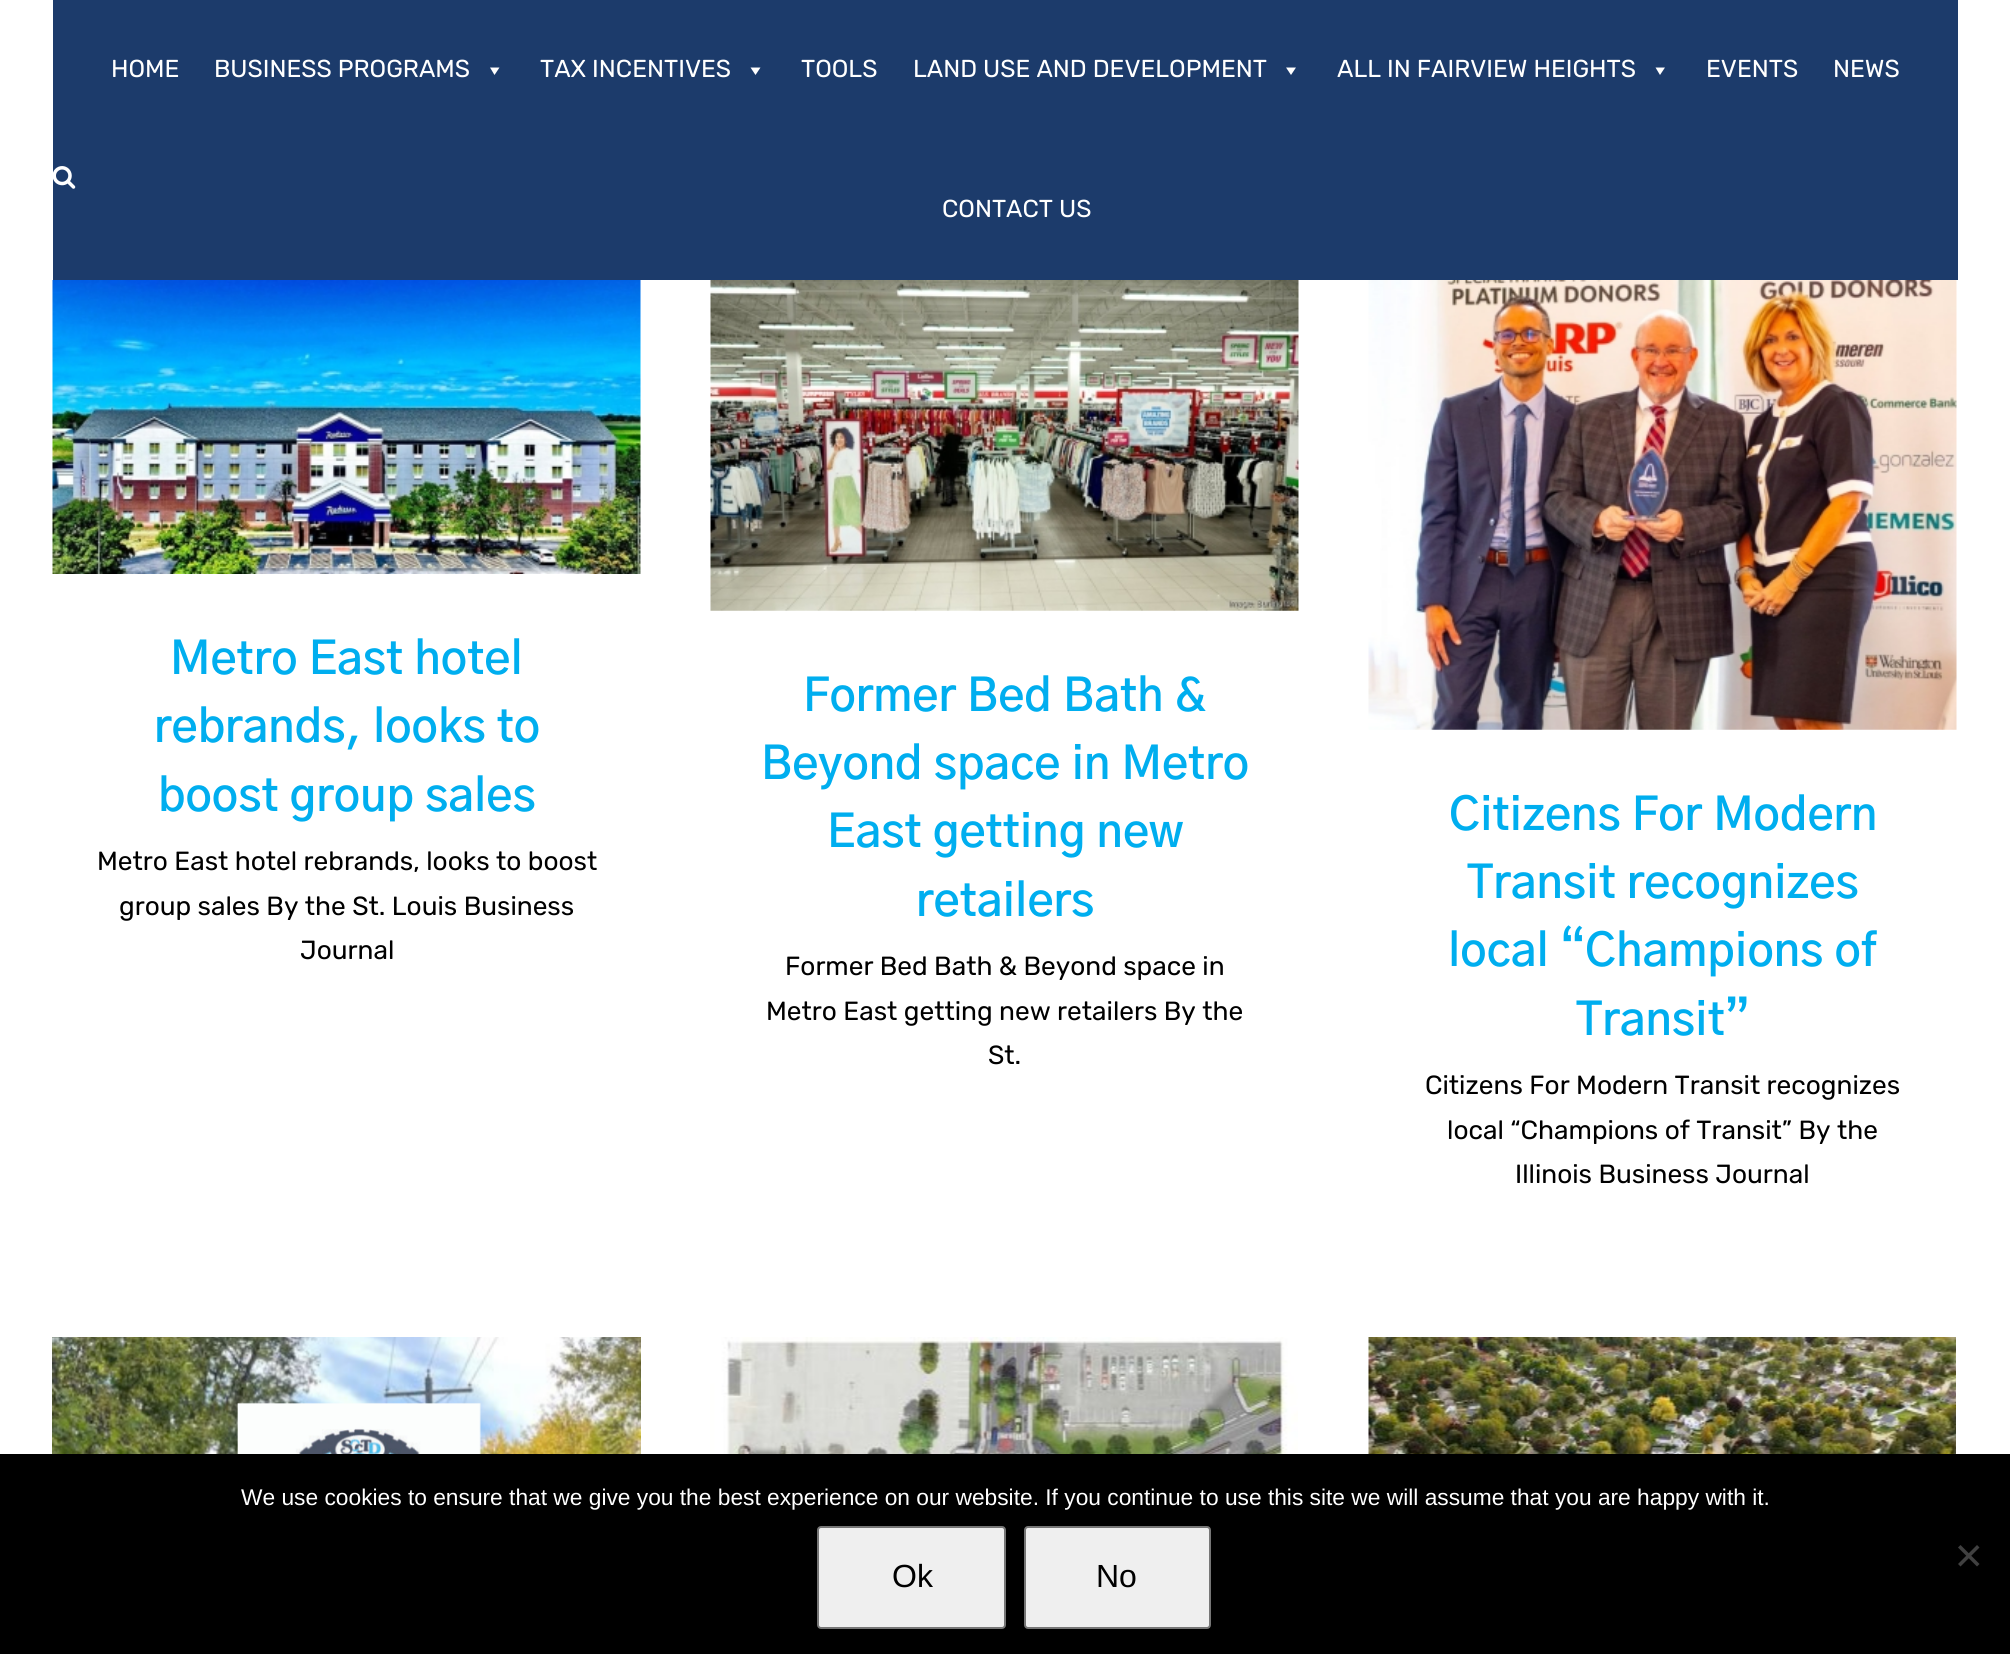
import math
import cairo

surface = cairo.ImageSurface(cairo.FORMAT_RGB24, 2010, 1654)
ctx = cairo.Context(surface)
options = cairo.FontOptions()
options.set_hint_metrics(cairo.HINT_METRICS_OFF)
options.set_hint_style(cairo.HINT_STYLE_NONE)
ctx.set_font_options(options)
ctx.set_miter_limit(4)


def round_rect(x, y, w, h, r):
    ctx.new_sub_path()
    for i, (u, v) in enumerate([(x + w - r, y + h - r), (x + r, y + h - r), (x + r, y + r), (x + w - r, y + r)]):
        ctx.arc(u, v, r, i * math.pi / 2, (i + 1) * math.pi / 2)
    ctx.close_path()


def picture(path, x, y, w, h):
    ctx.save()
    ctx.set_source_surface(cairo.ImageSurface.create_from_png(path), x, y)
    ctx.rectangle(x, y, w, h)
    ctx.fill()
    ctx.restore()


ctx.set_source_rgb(1, 1, 1)
ctx.paint()
ctx.set_source_rgb(0.11, 0.231, 0.42)
ctx.rectangle(53, 0, 1905, 280)
ctx.fill()
ctx.select_font_face("Rubik")
ctx.set_font_size(24.5)
ctx.set_source_rgb(1, 1, 1)
ctx.move_to(111, 77)
ctx.show_text("HOME")
ctx.move_to(214, 77)
ctx.show_text("BUSINESS PROGRAMS")
ctx.new_path()
ctx.move_to(499.5, 67.5)
ctx.line_to(494.5, 75)
ctx.line_to(490, 67.5)
ctx.close_path()
ctx.fill()
ctx.move_to(540, 77)
ctx.show_text("TAX INCENTIVES")
ctx.new_path()
ctx.move_to(760.5, 67.5)
ctx.line_to(755.5, 75)
ctx.line_to(750.5, 67.5)
ctx.close_path()
ctx.fill()
ctx.move_to(801, 77)
ctx.show_text("TOOLS")
ctx.move_to(913, 77)
ctx.show_text("LAND USE AND DEVELOPMENT")
ctx.new_path()
ctx.move_to(1296, 67.5)
ctx.line_to(1291, 75)
ctx.line_to(1286, 67.5)
ctx.close_path()
ctx.fill()
ctx.move_to(1337, 77)
ctx.show_text("ALL IN FAIRVIEW HEIGHTS")
ctx.new_path()
ctx.move_to(1665, 67.5)
ctx.line_to(1660, 75)
ctx.line_to(1655.5, 67.5)
ctx.close_path()
ctx.fill()
ctx.move_to(1706, 77)
ctx.show_text("EVENTS")
ctx.move_to(1833, 77)
ctx.show_text("NEWS")
picture("img1.png", 53, 166, 23, 23)
ctx.move_to(942, 217)
ctx.show_text("CONTACT US")
picture("img2.png", 52, 280, 589, 294)
ctx.select_font_face("Gothic A1 SemiBold")
ctx.set_font_size(45.5)
ctx.set_source_rgb(0, 0.682, 0.937)
ctx.move_to(170, 674)
ctx.show_text("Metro East hotel")
ctx.move_to(154, 742)
ctx.show_text("rebrands, looks to")
ctx.move_to(158, 811)
ctx.show_text("boost group sales")
ctx.select_font_face("Rubik")
ctx.set_font_size(26.25)
ctx.set_source_rgb(0, 0, 0)
ctx.move_to(97, 870)
ctx.show_text("Metro East hotel rebrands, looks to boost")
ctx.move_to(119, 915)
ctx.show_text("group sales By the St. Louis Business")
ctx.move_to(300, 959)
ctx.show_text("Journal")
picture("img3.png", 710, 280, 589, 331)
ctx.select_font_face("Gothic A1 SemiBold")
ctx.set_font_size(45.5)
ctx.set_source_rgb(0, 0.682, 0.937)
ctx.move_to(803, 711)
ctx.show_text("Former Bed Bath &")
ctx.move_to(761, 779)
ctx.show_text("Beyond space in Metro")
ctx.move_to(827, 847)
ctx.show_text("East getting new")
ctx.move_to(916, 916)
ctx.show_text("retailers")
ctx.select_font_face("Rubik")
ctx.set_font_size(26.25)
ctx.set_source_rgb(0, 0, 0)
ctx.move_to(785, 975)
ctx.show_text("Former Bed Bath & Beyond space in")
ctx.move_to(766, 1020)
ctx.show_text("Metro East getting new retailers By the")
ctx.move_to(988, 1064)
ctx.show_text("St.")
picture("img4.png", 1368, 280, 589, 450)
ctx.select_font_face("Gothic A1 SemiBold")
ctx.set_font_size(45.5)
ctx.set_source_rgb(0, 0.682, 0.937)
ctx.move_to(1449, 830)
ctx.show_text("Citizens For Modern")
ctx.move_to(1467, 898)
ctx.show_text("Transit recognizes")
ctx.move_to(1448, 966)
ctx.show_text("local “Champions of")
ctx.move_to(1576, 1035)
ctx.show_text("Transit”")
ctx.select_font_face("Rubik")
ctx.set_font_size(26.25)
ctx.set_source_rgb(0, 0, 0)
ctx.move_to(1425, 1094)
ctx.show_text("Citizens For Modern Transit recognizes")
ctx.move_to(1447, 1139)
ctx.show_text("local “Champions of Transit” By the")
ctx.move_to(1515, 1183)
ctx.show_text("Illinois Business Journal")
picture("img5.png", 52, 1337, 589, 117)
picture("img6.png", 710, 1337, 588, 117)
picture("img7.png", 1368, 1337, 588, 117)
ctx.rectangle(0, 1454, 2010, 200)
ctx.fill()
ctx.select_font_face("Liberation Sans")
ctx.set_font_size(22.75)
ctx.set_source_rgb(1, 1, 1)
ctx.move_to(241, 1505)
ctx.show_text("We use cookies to ensure that we give you the best experience on our website. If you continue to use this site we will assume that you are happy with it.")
ctx.set_source_rgb(0.251, 0.251, 0.251)
ctx.new_path()
ctx.move_to(1977, 1545)
ctx.line_to(1979.5, 1547.5)
ctx.line_to(1960.5, 1566.5)
ctx.line_to(1958, 1564)
ctx.close_path()
ctx.fill()
ctx.new_path()
ctx.move_to(1958, 1547.5)
ctx.line_to(1960.5, 1545)
ctx.line_to(1979.5, 1564)
ctx.line_to(1977, 1566.5)
ctx.close_path()
ctx.fill()
ctx.set_source_rgb(0.937, 0.937, 0.937)
round_rect(818, 1527, 187, 101, 3)
ctx.fill_preserve()
ctx.set_source_rgb(0.463, 0.463, 0.463)
ctx.stroke()
ctx.set_font_size(32)
ctx.set_source_rgb(0, 0, 0)
ctx.move_to(892, 1587)
ctx.show_text("Ok")
ctx.set_source_rgb(0.937, 0.937, 0.937)
round_rect(1025, 1527, 185, 101, 3)
ctx.fill_preserve()
ctx.set_source_rgb(0.463, 0.463, 0.463)
ctx.stroke()
ctx.set_source_rgb(0, 0, 0)
ctx.move_to(1096, 1587)
ctx.show_text("No")
surface.write_to_png("page.png")
